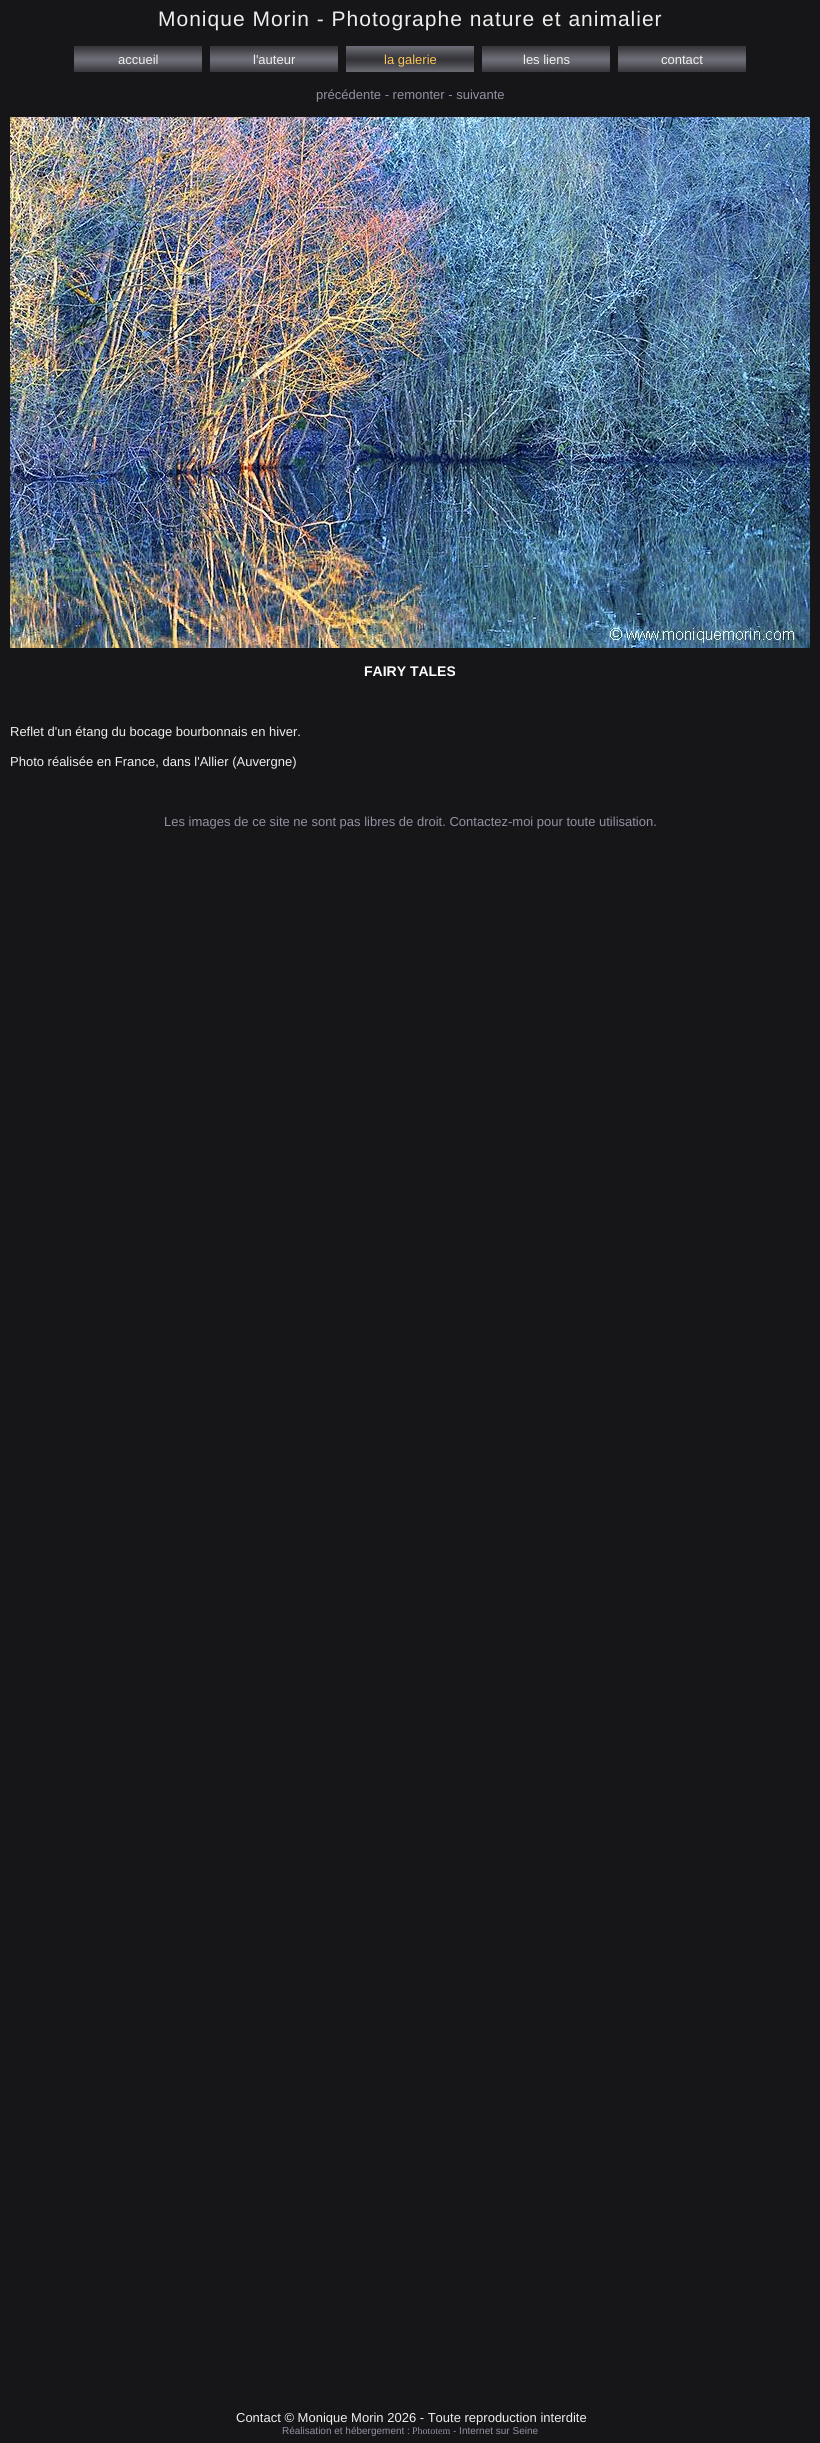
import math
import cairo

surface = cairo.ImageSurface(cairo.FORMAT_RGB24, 820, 2443)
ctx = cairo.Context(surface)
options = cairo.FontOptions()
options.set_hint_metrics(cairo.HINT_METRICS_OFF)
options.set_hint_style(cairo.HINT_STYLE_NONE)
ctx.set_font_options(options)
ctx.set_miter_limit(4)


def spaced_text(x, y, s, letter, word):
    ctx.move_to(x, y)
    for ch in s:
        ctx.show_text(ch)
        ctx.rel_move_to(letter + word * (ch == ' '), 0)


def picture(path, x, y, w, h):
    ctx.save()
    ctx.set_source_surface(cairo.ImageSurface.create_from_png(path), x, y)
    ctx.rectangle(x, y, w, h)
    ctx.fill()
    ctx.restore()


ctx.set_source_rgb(0.086, 0.086, 0.094)
ctx.paint()
ctx.select_font_face("Liberation Sans")
ctx.set_font_size(21)
ctx.set_source_rgb(0.933, 0.933, 0.933)
spaced_text(158, 26, "Monique Morin - Photographe nature et animalier", 1, 0)
picture("img1.png", 74, 46, 128, 26)
ctx.set_font_size(13)
ctx.move_to(118, 64)
ctx.show_text("accueil")
picture("img1.png", 210, 46, 128, 26)
ctx.move_to(253, 64)
ctx.show_text("l'auteur")
picture("img2.png", 346, 46, 128, 26)
ctx.set_source_rgb(0.988, 0.773, 0.357)
ctx.move_to(384, 64)
ctx.show_text("la galerie")
picture("img1.png", 482, 46, 128, 26)
ctx.set_source_rgb(0.933, 0.933, 0.933)
ctx.move_to(523, 64)
ctx.show_text("les liens")
picture("img1.png", 618, 46, 128, 26)
ctx.move_to(661, 64)
ctx.show_text("contact")
ctx.set_source_rgb(0.569, 0.569, 0.635)
ctx.move_to(316, 99)
ctx.show_text("précédente - remonter - suivante")
picture("img3.png", 10, 117, 800, 531)
ctx.select_font_face("Liberation Sans", cairo.FONT_SLANT_NORMAL, cairo.FONT_WEIGHT_BOLD)
ctx.set_font_size(14)
ctx.set_source_rgb(1, 1, 1)
ctx.move_to(364, 676)
ctx.show_text("FAIRY TALES")
ctx.select_font_face("Liberation Sans")
ctx.set_font_size(13)
ctx.set_source_rgb(0.933, 0.933, 0.933)
ctx.move_to(10, 736)
ctx.show_text("Reflet d'un étang du bocage bourbonnais en hiver.")
ctx.move_to(10, 766)
ctx.show_text("Photo réalisée en France, dans l'Allier (Auvergne)")
ctx.set_source_rgb(0.569, 0.569, 0.635)
ctx.move_to(164, 826)
ctx.show_text("Les images de ce site ne sont pas libres de droit. Contactez-moi pour toute utilisation.")
ctx.set_source_rgb(0.933, 0.933, 0.933)
ctx.move_to(236, 2422)
ctx.show_text("Contact © Monique Morin 2026 - Toute reproduction interdite")
ctx.set_font_size(10)
ctx.set_source_rgb(0.569, 0.569, 0.635)
ctx.move_to(282, 2434)
ctx.show_text("Réalisation et hébergement :")
ctx.select_font_face("Liberation Serif")
ctx.move_to(412, 2434)
ctx.show_text("Phototem")
ctx.select_font_face("Liberation Sans")
ctx.move_to(453, 2434)
ctx.show_text("- Internet sur Seine")
surface.write_to_png("page.png")
